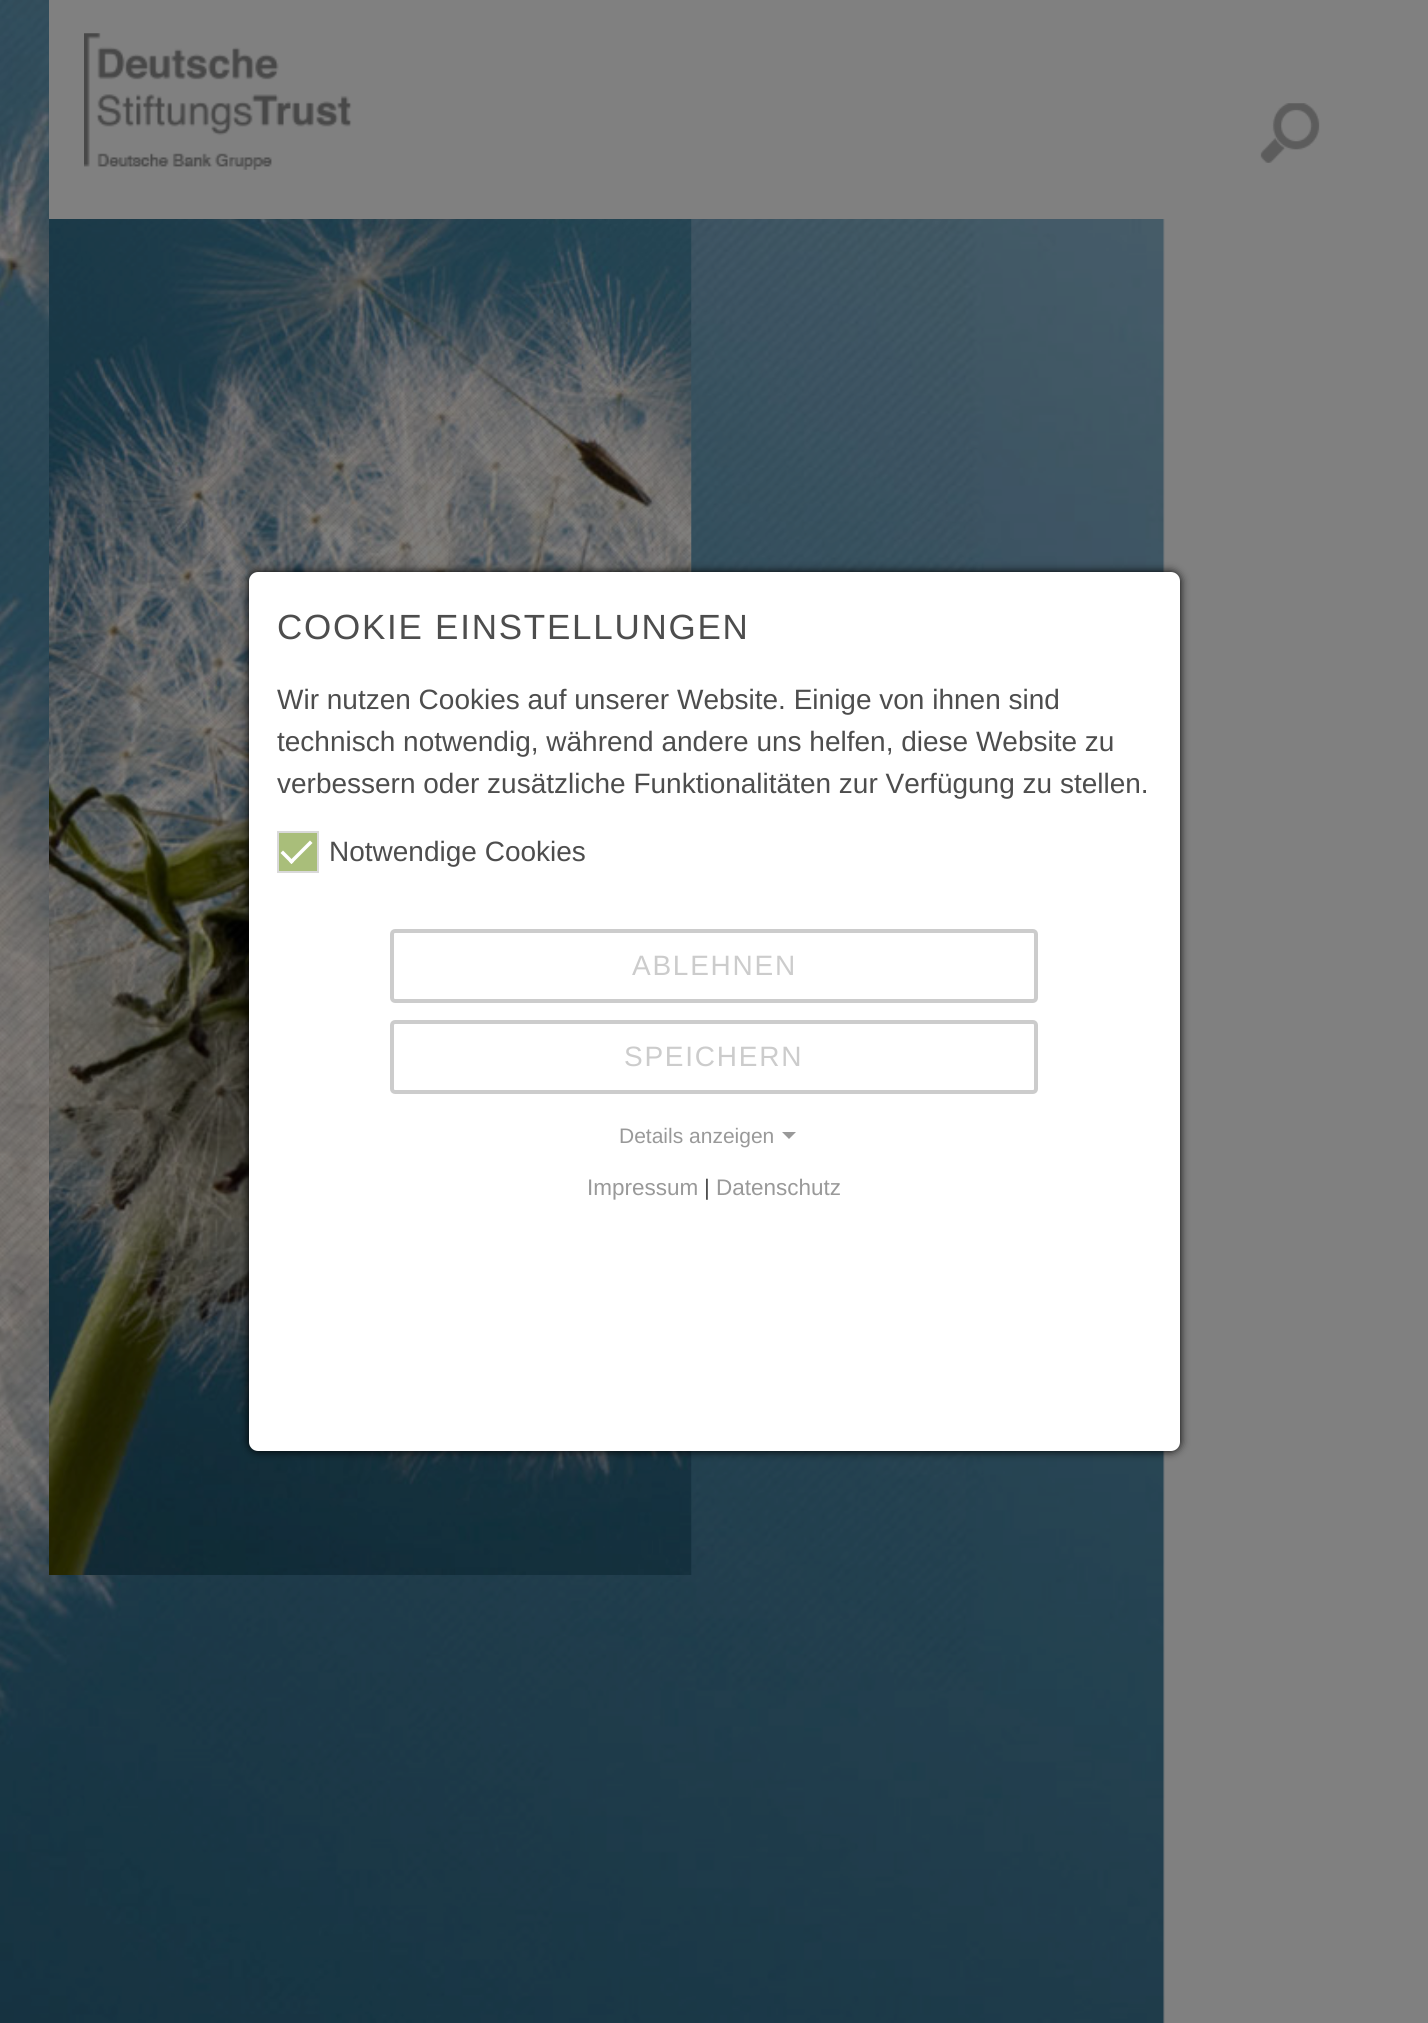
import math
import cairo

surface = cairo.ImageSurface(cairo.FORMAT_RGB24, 1428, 2023)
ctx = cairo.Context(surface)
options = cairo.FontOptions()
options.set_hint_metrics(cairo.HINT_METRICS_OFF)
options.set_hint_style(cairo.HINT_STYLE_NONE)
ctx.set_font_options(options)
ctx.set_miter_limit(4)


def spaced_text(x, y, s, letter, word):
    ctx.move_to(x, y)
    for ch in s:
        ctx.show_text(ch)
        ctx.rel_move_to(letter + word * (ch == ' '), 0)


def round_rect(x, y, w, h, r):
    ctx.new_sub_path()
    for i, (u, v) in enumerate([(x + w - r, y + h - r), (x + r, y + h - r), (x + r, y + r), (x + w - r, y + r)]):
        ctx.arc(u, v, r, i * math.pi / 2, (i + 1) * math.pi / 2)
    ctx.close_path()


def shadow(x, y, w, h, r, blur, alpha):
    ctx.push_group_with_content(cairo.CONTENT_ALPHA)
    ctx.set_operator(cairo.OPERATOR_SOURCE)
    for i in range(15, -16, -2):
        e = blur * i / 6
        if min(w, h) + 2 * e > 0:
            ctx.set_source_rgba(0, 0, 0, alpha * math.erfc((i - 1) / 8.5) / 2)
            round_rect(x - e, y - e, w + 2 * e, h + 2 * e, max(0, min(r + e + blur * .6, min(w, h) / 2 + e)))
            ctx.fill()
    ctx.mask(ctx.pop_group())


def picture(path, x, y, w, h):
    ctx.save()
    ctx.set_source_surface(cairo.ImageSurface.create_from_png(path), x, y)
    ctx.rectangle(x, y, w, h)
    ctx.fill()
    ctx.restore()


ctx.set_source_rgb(0.502, 0.502, 0.502)
ctx.paint()
picture("img1.png", 0, 0, 1165, 2023)
ctx.set_source_rgb(0.502, 0.502, 0.502)
ctx.rectangle(49, 0, 1116, 219)
ctx.fill()
picture("img2.png", 84, 33, 268, 137)
picture("img3.png", 1260, 103, 60, 60)
picture("img4.png", 49, 219, 643, 1356)
ctx.set_source_rgb(0, 0, 0)
shadow(249, 572, 931, 879, 9, 4.5, 1)
ctx.set_source_rgb(1, 1, 1)
round_rect(249, 572, 931, 879, 9)
ctx.fill()
ctx.select_font_face("Liberation Sans")
ctx.set_font_size(35)
ctx.set_source_rgb(0.302, 0.302, 0.302)
spaced_text(277, 639, "COOKIE EINSTELLUNGEN", 1.75, 0)
ctx.set_font_size(28)
ctx.move_to(277, 709)
ctx.show_text("Wir nutzen Cookies auf unserer Website. Einige von ihnen sind")
ctx.move_to(277, 751)
ctx.show_text("technisch notwendig, während andere uns helfen, diese Website zu")
ctx.move_to(277, 793)
ctx.show_text("verbessern oder zusätzliche Funktionalitäten zur Verfügung zu stellen.")
ctx.set_source_rgb(0.663, 0.745, 0.478)
ctx.rectangle(278, 832, 40, 40)
ctx.fill_preserve()
ctx.set_source_rgb(0.851, 0.851, 0.851)
ctx.stroke()
ctx.set_source_rgb(1, 1, 1)
ctx.new_path()
ctx.move_to(310, 840.5)
ctx.line_to(312.5, 843)
ctx.line_to(291.5, 864)
ctx.line_to(289, 861.5)
ctx.close_path()
ctx.fill()
ctx.new_path()
ctx.move_to(283, 850.5)
ctx.line_to(294, 861.5)
ctx.line_to(291.5, 864)
ctx.line_to(280.5, 853)
ctx.close_path()
ctx.fill()
ctx.set_source_rgb(0.302, 0.302, 0.302)
ctx.move_to(329, 861)
ctx.show_text("Notwendige Cookies")
round_rect(392, 931, 644, 70, 3)
ctx.set_source_rgb(0.8, 0.8, 0.8)
ctx.set_line_width(4)
ctx.stroke()
spaced_text(632, 975, "ABLEHNEN", 1.75, 0)
round_rect(392, 1022, 644, 70, 3)
ctx.stroke()
spaced_text(624, 1066, "SPEICHERN", 1.75, 0)
ctx.set_font_size(21)
ctx.set_source_rgb(0.6, 0.6, 0.6)
ctx.move_to(619, 1143)
ctx.show_text("Details anzeigen")
ctx.new_path()
ctx.move_to(782, 1132)
ctx.line_to(796, 1132)
ctx.line_to(789, 1139)
ctx.close_path()
ctx.fill()
ctx.set_font_size(22.5)
ctx.move_to(587, 1195)
ctx.show_text("Impressum")
ctx.set_source_rgb(0.302, 0.302, 0.302)
ctx.move_to(704, 1195)
ctx.show_text("|")
ctx.set_source_rgb(0.6, 0.6, 0.6)
ctx.move_to(716, 1195)
ctx.show_text("Datenschutz")
surface.write_to_png("page.png")
